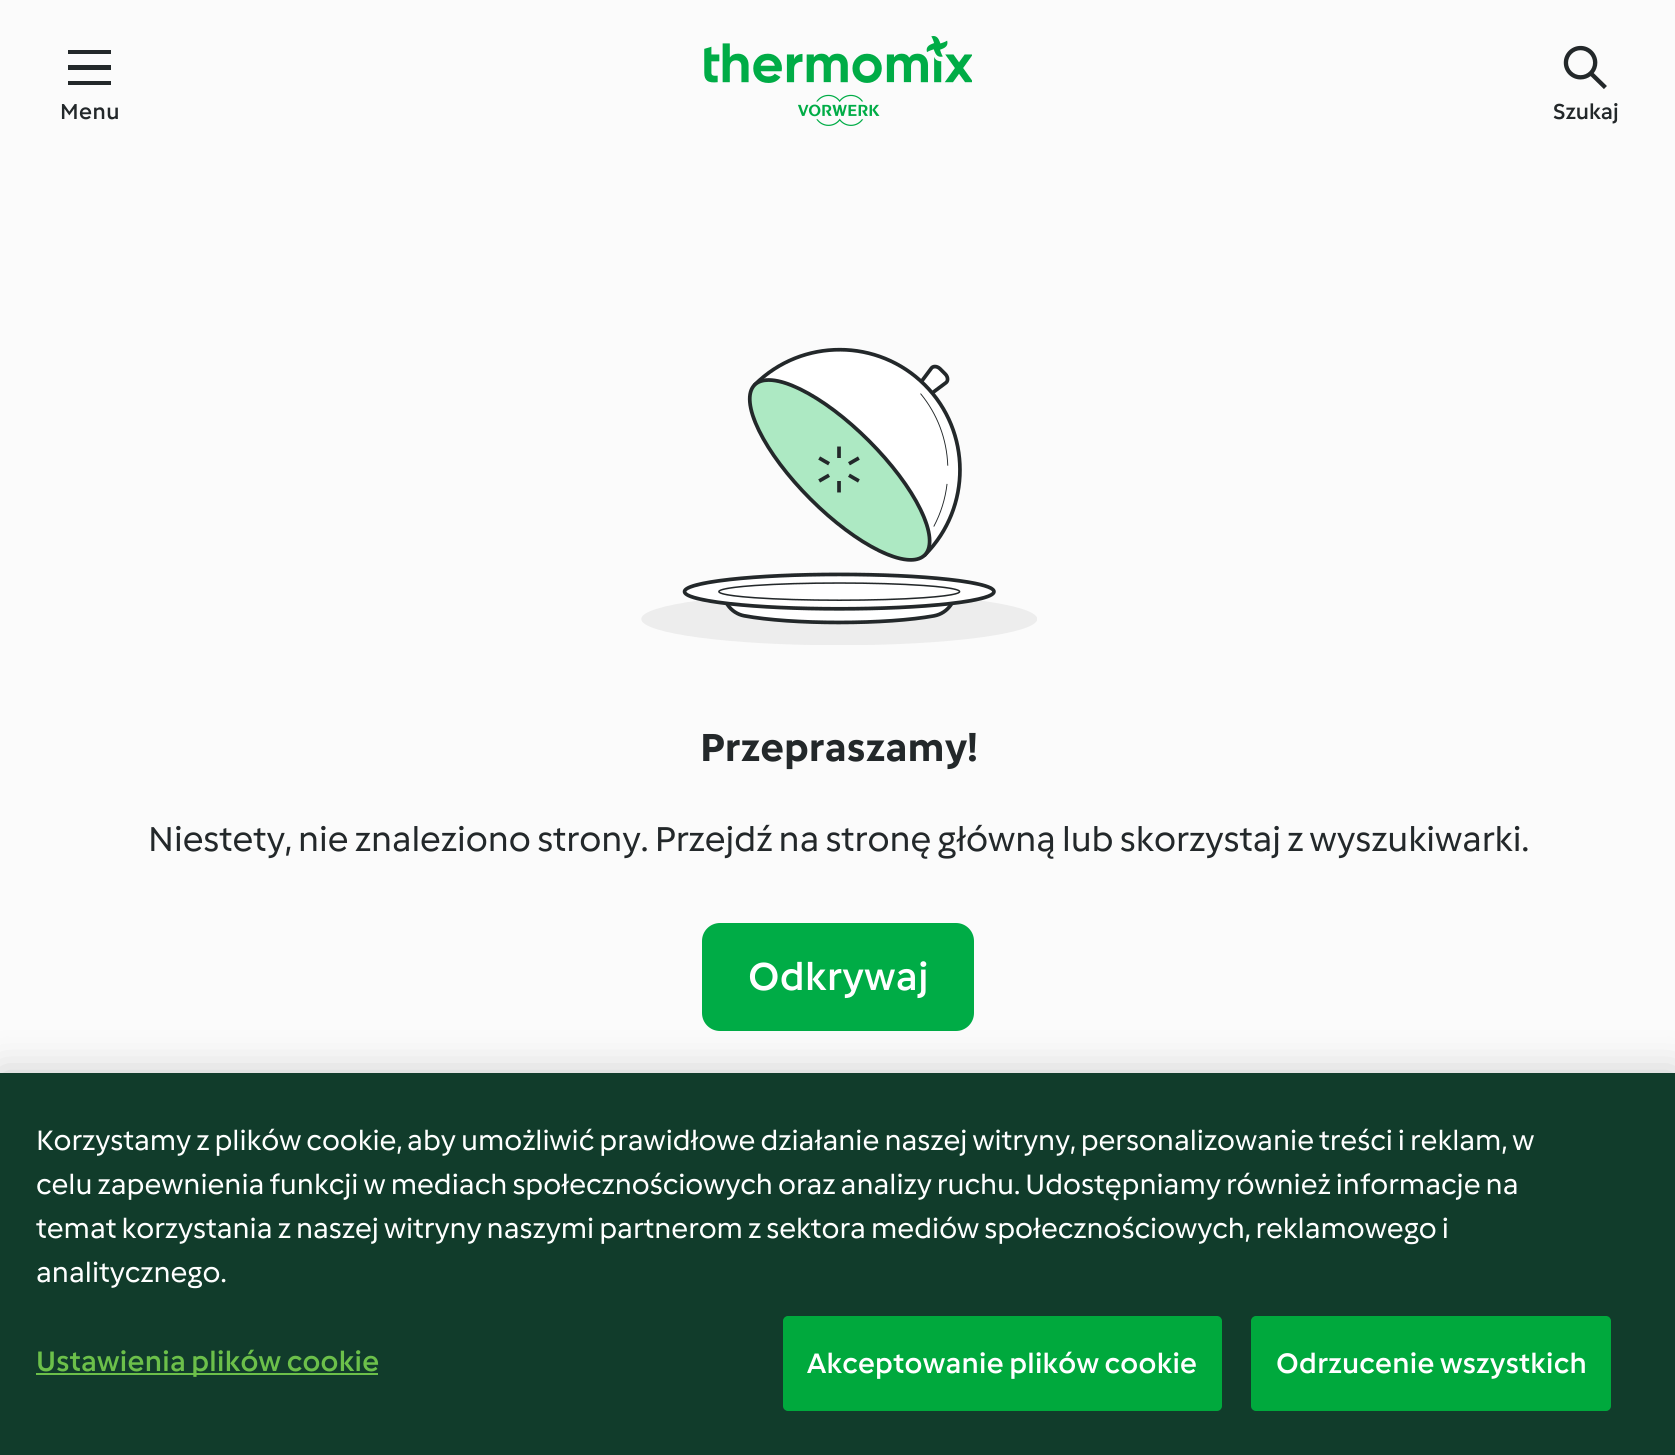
import math
import cairo

surface = cairo.ImageSurface(cairo.FORMAT_RGB24, 1675, 1455)
ctx = cairo.Context(surface)
options = cairo.FontOptions()
options.set_hint_metrics(cairo.HINT_METRICS_OFF)
options.set_hint_style(cairo.HINT_STYLE_NONE)
ctx.set_font_options(options)
ctx.set_miter_limit(4)


def spaced_text(x, y, s, letter, word):
    ctx.move_to(x, y)
    for ch in s:
        ctx.show_text(ch)
        ctx.rel_move_to(letter + word * (ch == ' '), 0)


def round_rect(x, y, w, h, r):
    ctx.new_sub_path()
    for i, (u, v) in enumerate([(x + w - r, y + h - r), (x + r, y + h - r), (x + r, y + r), (x + w - r, y + r)]):
        ctx.arc(u, v, r, i * math.pi / 2, (i + 1) * math.pi / 2)
    ctx.close_path()


def shadow(x, y, w, h, r, blur, alpha):
    ctx.push_group_with_content(cairo.CONTENT_ALPHA)
    ctx.set_operator(cairo.OPERATOR_SOURCE)
    for i in range(15, -16, -2):
        e = blur * i / 6
        if min(w, h) + 2 * e > 0:
            ctx.set_source_rgba(0, 0, 0, alpha * math.erfc((i - 1) / 8.5) / 2)
            round_rect(x - e, y - e, w + 2 * e, h + 2 * e, max(0, min(r + e + blur * .6, min(w, h) / 2 + e)))
            ctx.fill()
    ctx.mask(ctx.pop_group())


def picture(path, x, y, w, h):
    ctx.save()
    ctx.set_source_surface(cairo.ImageSurface.create_from_png(path), x, y)
    ctx.rectangle(x, y, w, h)
    ctx.fill()
    ctx.restore()


ctx.set_source_rgb(0.984, 0.984, 0.984)
ctx.paint()
ctx.set_source_rgb(0.137, 0.157, 0.165)
ctx.new_path()
ctx.move_to(68, 50)
ctx.line_to(111, 50)
ctx.line_to(111, 54)
ctx.line_to(68, 54)
ctx.close_path()
ctx.move_to(68, 65)
ctx.line_to(111, 65)
ctx.line_to(111, 70)
ctx.line_to(68, 70)
ctx.close_path()
ctx.move_to(68, 81)
ctx.line_to(111, 81)
ctx.line_to(111, 85)
ctx.line_to(68, 85)
ctx.close_path()
ctx.fill()
ctx.select_font_face("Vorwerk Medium")
ctx.set_font_size(22.5)
spaced_text(60, 119, "Menu", 0.5, 0)
picture("img1.png", 704, 36, 268, 90)
picture("img2.png", 1563, 45, 44, 44)
ctx.move_to(1553, 119)
ctx.show_text("Szukaj")
picture("img3.png", 641, 347, 396, 298)
ctx.select_font_face("Vorwerk", cairo.FONT_SLANT_NORMAL, cairo.FONT_WEIGHT_BOLD)
ctx.set_font_size(40.5)
spaced_text(700, 761, "Przepraszamy!", 0.5, 0)
ctx.select_font_face("Vorwerk")
ctx.set_font_size(36)
ctx.move_to(148, 851)
ctx.show_text("Niestety, nie znaleziono strony. Przejdź na stronę główną lub skorzystaj z wyszukiwarki.")
ctx.set_source_rgb(0, 0.675, 0.275)
round_rect(702, 923, 272, 108, 18)
ctx.fill()
ctx.select_font_face("Vorwerk Medium")
ctx.set_font_size(40.5)
ctx.set_source_rgb(1, 1, 1)
spaced_text(748, 990, "Odkrywaj", 0.5, 0)
ctx.set_source_rgb(0, 0, 0)
shadow(0, 1073, 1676, 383, 0, 20, 0.2)
ctx.set_source_rgb(0.067, 0.235, 0.169)
ctx.rectangle(0, 1073, 1675, 382)
ctx.fill()
ctx.select_font_face("Vorwerk")
ctx.set_font_size(29.27)
ctx.set_source_rgb(1, 1, 1)
ctx.move_to(36, 1150)
ctx.show_text("Korzystamy z plików cookie, aby umożliwić prawidłowe działanie naszej witryny, personalizowanie treści i reklam, w")
ctx.move_to(36, 1194)
ctx.show_text("celu zapewnienia funkcji w mediach społecznościowych oraz analizy ruchu. Udostępniamy również informacje na")
ctx.move_to(36, 1238)
ctx.show_text("temat korzystania z naszej witryny naszymi partnerom z sektora mediów społecznościowych, reklamowego i")
ctx.move_to(36, 1282)
ctx.show_text("analitycznego.")
ctx.set_source_rgb(0.424, 0.753, 0.29)
ctx.rectangle(36, 1373, 342, 2)
ctx.fill()
ctx.select_font_face("Vorwerk Medium")
spaced_text(36, 1371, "Ustawienia plików cookie", 0.3, 0)
ctx.set_source_rgb(0, 0.663, 0.239)
round_rect(784, 1317, 437, 93, 4)
ctx.fill_preserve()
ctx.stroke()
ctx.set_source_rgb(1, 1, 1)
spaced_text(807, 1373, "Akceptowanie plików cookie", 0.3, 0)
ctx.set_source_rgb(0, 0.663, 0.239)
round_rect(1252, 1317, 358, 93, 4)
ctx.fill_preserve()
ctx.stroke()
ctx.set_source_rgb(1, 1, 1)
spaced_text(1276, 1373, "Odrzucenie wszystkich", 0.3, 0)
surface.write_to_png("page.png")
